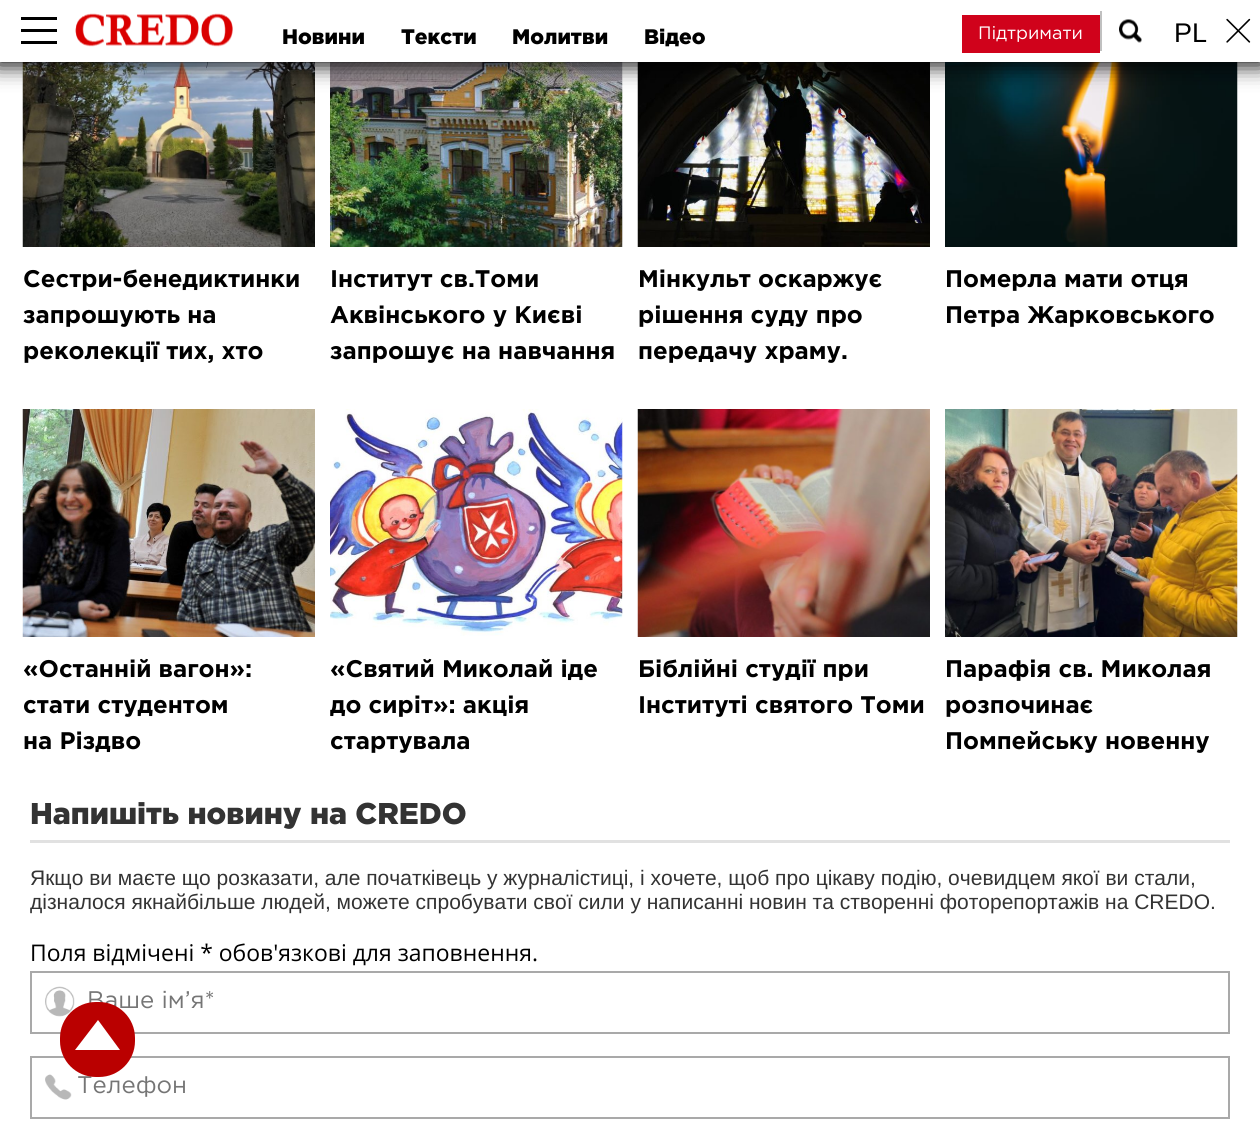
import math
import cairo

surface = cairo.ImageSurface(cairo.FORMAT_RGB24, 1260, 1136)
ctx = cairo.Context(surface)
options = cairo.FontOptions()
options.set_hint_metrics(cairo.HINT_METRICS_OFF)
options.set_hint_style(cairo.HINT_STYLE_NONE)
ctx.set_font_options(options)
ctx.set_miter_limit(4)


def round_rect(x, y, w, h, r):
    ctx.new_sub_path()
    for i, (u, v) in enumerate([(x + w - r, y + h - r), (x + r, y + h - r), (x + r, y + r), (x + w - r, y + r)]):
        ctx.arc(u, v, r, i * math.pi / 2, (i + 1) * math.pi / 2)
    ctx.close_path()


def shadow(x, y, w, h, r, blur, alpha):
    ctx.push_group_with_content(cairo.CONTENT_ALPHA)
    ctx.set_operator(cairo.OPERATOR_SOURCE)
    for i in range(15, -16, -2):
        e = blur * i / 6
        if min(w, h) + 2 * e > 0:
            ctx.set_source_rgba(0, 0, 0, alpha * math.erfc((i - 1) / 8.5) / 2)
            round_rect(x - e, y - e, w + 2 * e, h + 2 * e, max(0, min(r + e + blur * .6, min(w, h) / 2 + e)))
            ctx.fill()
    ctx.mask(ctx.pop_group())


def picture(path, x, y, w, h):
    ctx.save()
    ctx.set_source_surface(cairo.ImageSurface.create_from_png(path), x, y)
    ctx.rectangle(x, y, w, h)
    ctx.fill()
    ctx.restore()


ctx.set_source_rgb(1, 1, 1)
ctx.paint()
picture("img4.png", 22, 62, 293, 185)
picture("img5.png", 330, 62, 293, 185)
picture("img6.png", 637, 62, 293, 185)
picture("img7.png", 945, 62, 293, 185)
ctx.set_source_rgb(0, 0, 0)
shadow(-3, -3, 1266, 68, 0, 11, 1)
ctx.set_source_rgb(1, 1, 1)
ctx.rectangle(0, 0, 1260, 62)
ctx.fill()
ctx.set_source_rgb(0, 0, 0)
ctx.rectangle(21, 17, 36, 3)
ctx.fill()
ctx.rectangle(21, 29, 36, 3)
ctx.fill()
ctx.rectangle(21, 41, 36, 3)
ctx.fill()
picture("img1.png", 75, 13, 158, 34)
ctx.select_font_face("Gotham Black")
ctx.set_font_size(21)
ctx.move_to(282, 44)
ctx.show_text("Новини")
ctx.move_to(401, 44)
ctx.show_text("Тексти")
ctx.move_to(512, 44)
ctx.show_text("Молитви")
ctx.move_to(644, 44)
ctx.show_text("Відео")
ctx.set_source_rgb(0.816, 0.008, 0.106)
ctx.rectangle(962, 15, 138, 38)
ctx.fill()
ctx.select_font_face("Gotham")
ctx.set_font_size(18)
ctx.set_source_rgb(1, 1, 1)
ctx.move_to(978, 39)
ctx.show_text("Підтримати")
picture("img2.png", 1119, 19, 23, 24)
ctx.set_source_rgb(0.753, 0.753, 0.753)
ctx.rectangle(1100, 11, 2, 40)
ctx.fill()
ctx.select_font_face("Liberation Sans")
ctx.set_font_size(27)
ctx.set_source_rgb(0, 0, 0)
ctx.move_to(1174, 42)
ctx.show_text("PL")
picture("img3.png", 1226, 18, 25, 25)
ctx.select_font_face("Gotham", cairo.FONT_SLANT_NORMAL, cairo.FONT_WEIGHT_BOLD)
ctx.set_font_size(24)
ctx.move_to(23, 287)
ctx.show_text("Сестри-бенедиктинки")
ctx.move_to(23, 323)
ctx.show_text("запрошують на")
ctx.move_to(23, 359)
ctx.show_text("реколекції тих, хто")
ctx.move_to(330, 287)
ctx.show_text("Інститут св.Томи")
ctx.move_to(330, 323)
ctx.show_text("Аквінського у Києві")
ctx.move_to(330, 359)
ctx.show_text("запрошує на навчання")
ctx.move_to(638, 287)
ctx.show_text("Мінкульт оскаржує")
ctx.move_to(638, 323)
ctx.show_text("рішення суду про")
ctx.move_to(638, 359)
ctx.show_text("передачу храму.")
ctx.move_to(945, 287)
ctx.show_text("Померла мати отця")
ctx.move_to(945, 323)
ctx.show_text("Петра Жарковського")
picture("img8.png", 22, 409, 293, 228)
ctx.move_to(23, 677)
ctx.show_text("«Останній вагон»:")
ctx.move_to(23, 713)
ctx.show_text("стати студентом")
ctx.move_to(23, 749)
ctx.show_text("на Різдво")
picture("img9.png", 330, 409, 293, 227)
ctx.move_to(330, 677)
ctx.show_text("«Святий Миколай іде")
ctx.move_to(330, 713)
ctx.show_text("до сиріт»: акція")
ctx.move_to(330, 749)
ctx.show_text("стартувала")
picture("img10.png", 637, 409, 293, 228)
ctx.move_to(638, 677)
ctx.show_text("Біблійні студії при")
ctx.move_to(638, 713)
ctx.show_text("Інституті святого Томи")
picture("img11.png", 945, 409, 293, 228)
ctx.move_to(945, 677)
ctx.show_text("Парафія св. Миколая")
ctx.move_to(945, 713)
ctx.show_text("розпочинає")
ctx.move_to(945, 749)
ctx.show_text("Помпейську новенну")
ctx.select_font_face("Gotham Black")
ctx.set_font_size(30)
ctx.set_source_rgb(0.2, 0.2, 0.2)
ctx.move_to(30, 824)
ctx.show_text("Напишіть новину на CREDO")
ctx.set_source_rgb(0.882, 0.882, 0.882)
ctx.rectangle(30, 840, 1200, 3)
ctx.fill()
ctx.select_font_face("Liberation Sans")
ctx.set_font_size(21)
ctx.set_source_rgb(0.2, 0.2, 0.2)
ctx.move_to(30, 885)
ctx.show_text("Якщо ви маєте що розказати, але початківець у журналістиці, і хочете, щоб про цікаву подію, очевидцем якої ви стали,")
ctx.move_to(30, 909)
ctx.show_text("дізналося якнайбільше людей, можете спробувати свої сили у написанні новин та створенні фоторепортажів на CREDO.")
ctx.select_font_face("Open Sans")
ctx.set_font_size(22.95)
ctx.set_source_rgb(0, 0, 0)
ctx.move_to(30, 961)
ctx.show_text("Поля відмічені * обов'язкові для заповнення.")
picture("img12.png", 45, 986, 30, 31)
ctx.rectangle(31, 972, 1198, 61)
ctx.set_source_rgb(0.663, 0.663, 0.663)
ctx.stroke()
ctx.select_font_face("Gotham")
ctx.set_font_size(24)
ctx.set_source_rgb(0.459, 0.459, 0.459)
ctx.move_to(87, 1008)
ctx.show_text("Ваше ім’я*")
picture("img13.png", 45, 1074, 27, 26)
ctx.rectangle(31, 1057, 1198, 61)
ctx.set_source_rgb(0.663, 0.663, 0.663)
ctx.stroke()
ctx.set_source_rgb(0.459, 0.459, 0.459)
ctx.move_to(77, 1093)
ctx.show_text("Телефон")
ctx.set_source_rgb(0.729, 0, 0)
round_rect(60, 1002, 75, 75, 36)
ctx.fill()
ctx.set_source_rgb(1, 1, 1)
ctx.new_path()
ctx.move_to(120, 1050)
ctx.line_to(75, 1050)
ctx.line_to(98, 1020)
ctx.close_path()
ctx.fill()
surface.write_to_png("page.png")
